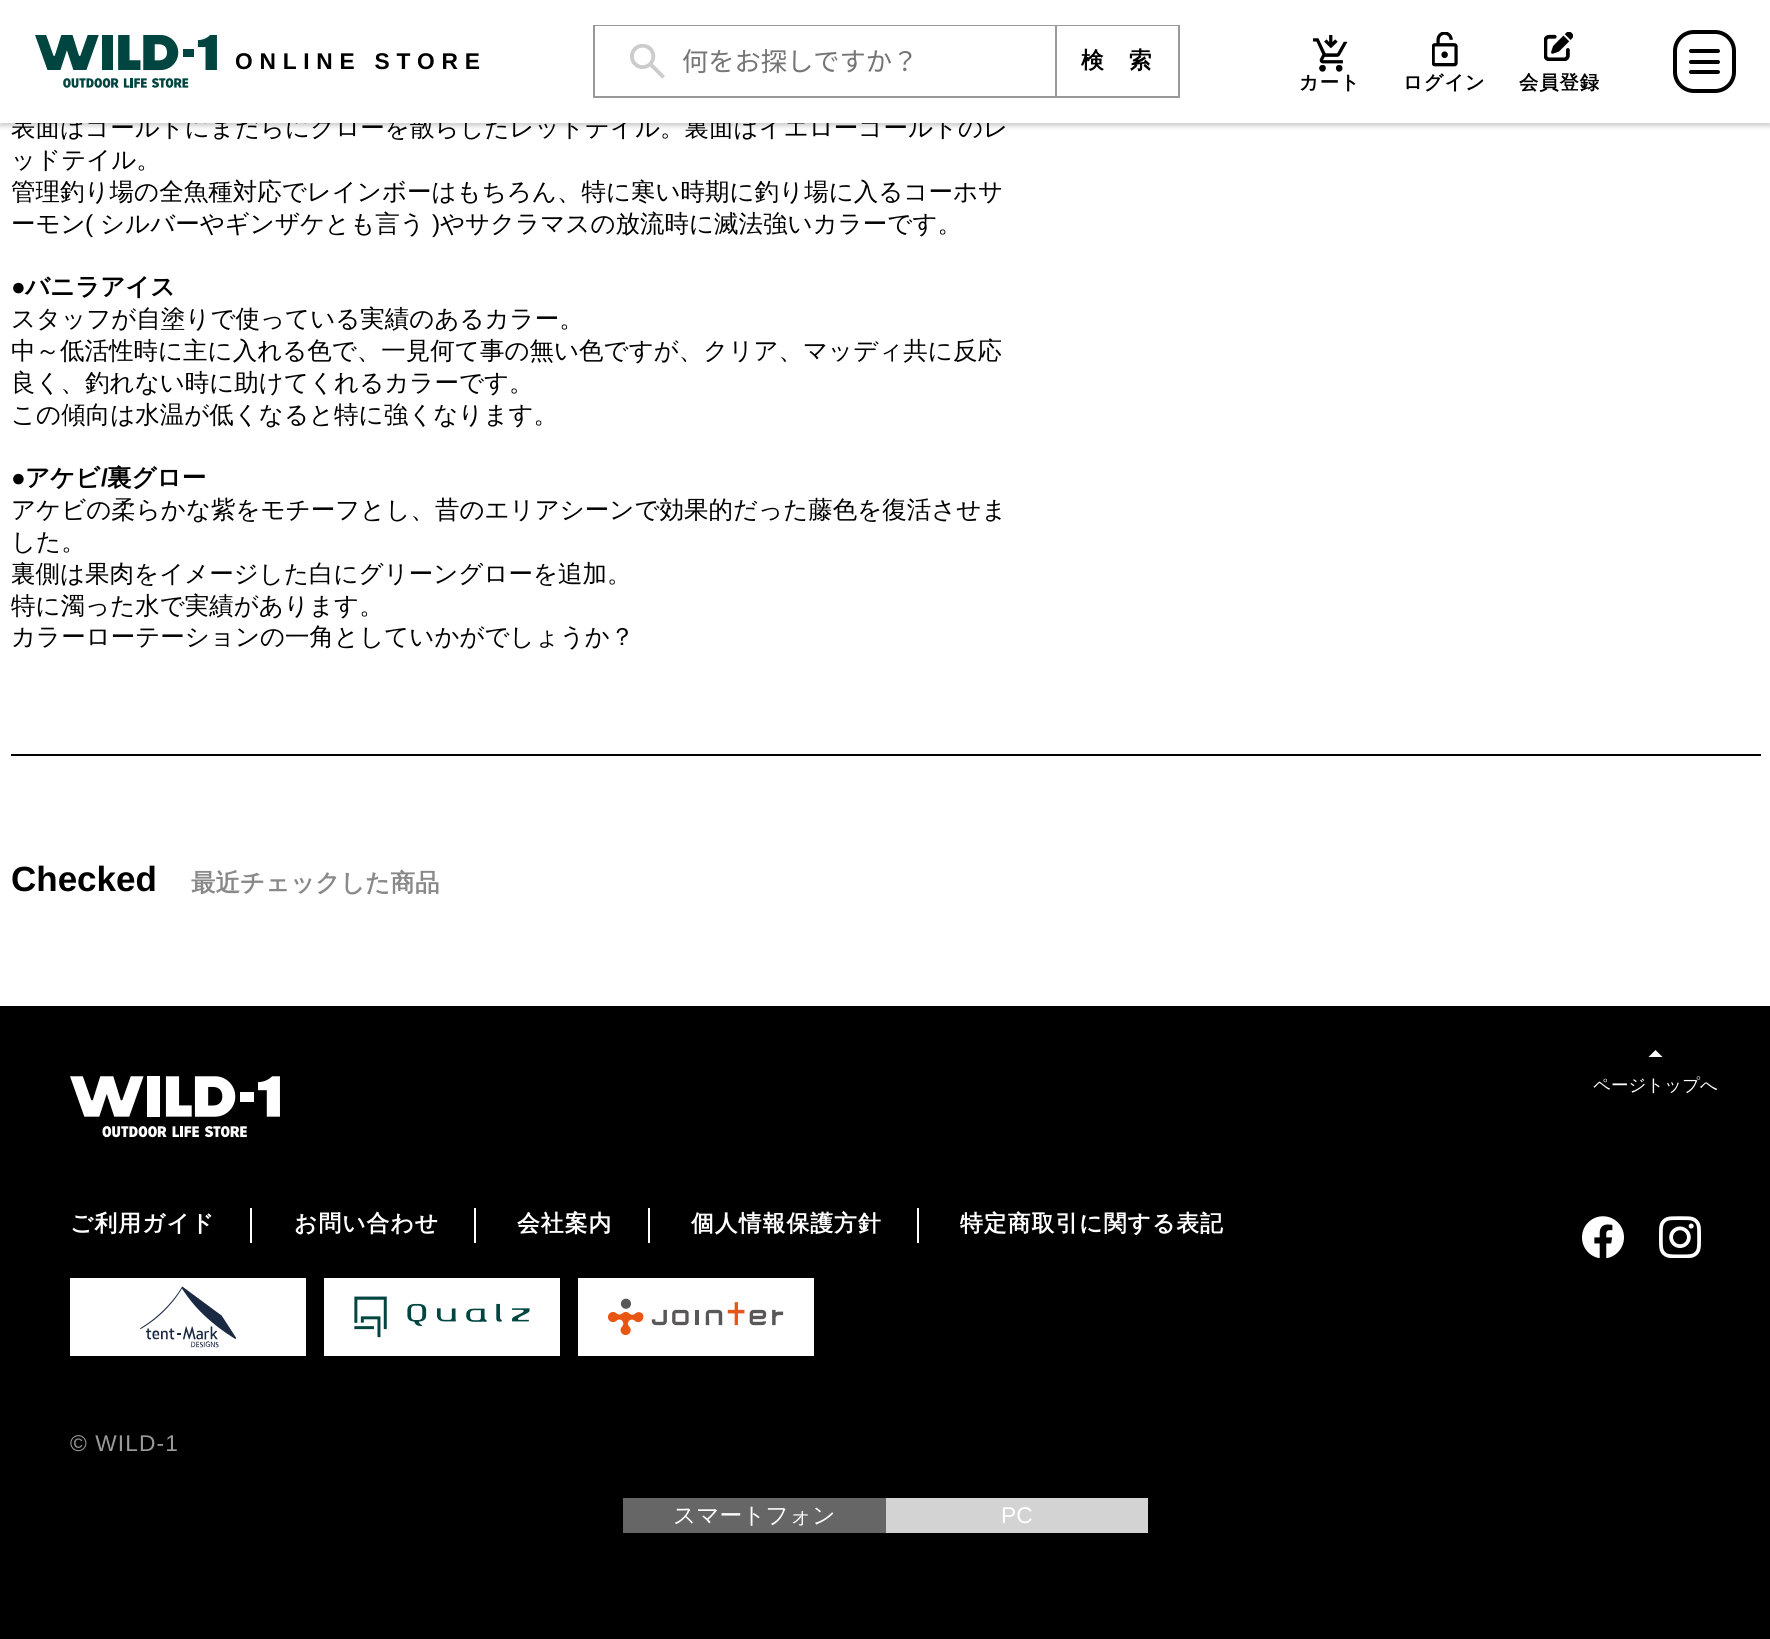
import math
import cairo

surface = cairo.ImageSurface(cairo.FORMAT_RGB24, 1770, 1639)
ctx = cairo.Context(surface)
options = cairo.FontOptions()
options.set_hint_metrics(cairo.HINT_METRICS_OFF)
options.set_hint_style(cairo.HINT_STYLE_NONE)
ctx.set_font_options(options)
ctx.set_miter_limit(4)


def spaced_text(x, y, s, letter, word):
    ctx.move_to(x, y)
    for ch in s:
        ctx.show_text(ch)
        ctx.rel_move_to(letter + word * (ch == ' '), 0)


def round_rect(x, y, w, h, r):
    ctx.new_sub_path()
    for i, (u, v) in enumerate([(x + w - r, y + h - r), (x + r, y + h - r), (x + r, y + r), (x + w - r, y + r)]):
        ctx.arc(u, v, r, i * math.pi / 2, (i + 1) * math.pi / 2)
    ctx.close_path()


def shadow(x, y, w, h, r, blur, alpha):
    ctx.push_group_with_content(cairo.CONTENT_ALPHA)
    ctx.set_operator(cairo.OPERATOR_SOURCE)
    for i in range(15, -16, -2):
        e = blur * i / 6
        if min(w, h) + 2 * e > 0:
            ctx.set_source_rgba(0, 0, 0, alpha * math.erfc((i - 1) / 8.5) / 2)
            round_rect(x - e, y - e, w + 2 * e, h + 2 * e, max(0, min(r + e + blur * .6, min(w, h) / 2 + e)))
            ctx.fill()
    ctx.mask(ctx.pop_group())


def picture(path, x, y, w, h):
    ctx.save()
    ctx.set_source_surface(cairo.ImageSurface.create_from_png(path), x, y)
    ctx.rectangle(x, y, w, h)
    ctx.fill()
    ctx.restore()


ctx.set_source_rgb(1, 1, 1)
ctx.paint()
ctx.set_source_rgb(0, 0, 0)
shadow(0, 4, 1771, 122, 0, 2.5, 0.2)
ctx.select_font_face("WenQuanYi Zen Hei Medium")
ctx.set_font_size(24.5)
ctx.set_source_rgb(0, 0, 0)
ctx.move_to(11, 136)
ctx.show_text("表面はゴールドにまだらにグローを散らしたレッドテイル。裏面はイエローゴールドのレ")
ctx.set_source_rgb(1, 1, 1)
ctx.rectangle(0, 0, 1770, 123)
ctx.fill()
picture("img1.png", 35, 35, 182, 53)
ctx.select_font_face("Liberation Sans", cairo.FONT_SLANT_NORMAL, cairo.FONT_WEIGHT_BOLD)
ctx.set_font_size(22.75)
ctx.set_source_rgb(0, 0, 0)
spaced_text(235, 69, "ONLINE STORE", 6.75, 0)
ctx.rectangle(594, 26, 585, 71)
ctx.set_source_rgb(0.6, 0.6, 0.6)
ctx.stroke()
ctx.set_source_rgb(1, 1, 1)
ctx.rectangle(595, 26, 460, 1)
ctx.fill()
picture("img2.png", 630, 44, 35, 35)
ctx.select_font_face("Noto Sans JP")
ctx.set_font_size(26.25)
ctx.set_source_rgb(0.459, 0.459, 0.459)
ctx.move_to(682, 71)
ctx.show_text("何をお探しですか？")
ctx.set_source_rgb(1, 1, 1)
ctx.rectangle(1057, 26, 121, 1)
ctx.fill()
ctx.set_source_rgb(0.6, 0.6, 0.6)
ctx.rectangle(1055, 26, 2, 70)
ctx.fill()
ctx.select_font_face("WenQuanYi Zen Hei", cairo.FONT_SLANT_NORMAL, cairo.FONT_WEIGHT_BOLD)
ctx.set_font_size(22.75)
ctx.set_source_rgb(0, 0, 0)
spaced_text(1081, 68, "検　索", 1.1, 0)
picture("img3.png", 1313, 35, 35, 37)
ctx.set_font_size(19.25)
spaced_text(1299, 89, "カート", 1, 0)
picture("img4.png", 1432, 32, 26, 35)
spaced_text(1403, 89, "ログイン", 1, 0)
picture("img5.png", 1544, 32, 29, 29)
spaced_text(1519, 89, "会員登録", 1, 0)
round_rect(1675, 32, 59, 59, 19)
ctx.set_line_width(4)
ctx.stroke()
round_rect(1689, 49, 31, 4, 2)
ctx.fill()
round_rect(1689, 60, 31, 4, 2)
ctx.fill()
round_rect(1689, 70, 31, 4, 2)
ctx.fill()
ctx.rectangle(11, 754, 1750, 2)
ctx.fill()
ctx.select_font_face("WenQuanYi Zen Hei Medium")
ctx.set_font_size(24.5)
ctx.move_to(11, 168)
ctx.show_text("ッドテイル。")
ctx.move_to(11, 200)
ctx.show_text("管理釣り場の全魚種対応でレインボーはもちろん、特に寒い時期に釣り場に入るコーホサ")
ctx.move_to(11, 232)
ctx.show_text("ーモン")
ctx.select_font_face("Liberation Sans")
ctx.move_to(85, 232)
ctx.show_text("(")
ctx.select_font_face("WenQuanYi Zen Hei Medium")
ctx.move_to(100, 232)
ctx.show_text("シルバーやギンザケとも言う")
ctx.select_font_face("Liberation Sans")
ctx.move_to(432, 232)
ctx.show_text(")")
ctx.select_font_face("WenQuanYi Zen Hei Medium")
ctx.move_to(440, 232)
ctx.show_text("やサクラマスの放流時に滅法強いカラーです。")
ctx.select_font_face("Liberation Sans", cairo.FONT_SLANT_NORMAL, cairo.FONT_WEIGHT_BOLD)
ctx.move_to(11, 295)
ctx.show_text("●")
ctx.select_font_face("WenQuanYi Zen Hei", cairo.FONT_SLANT_NORMAL, cairo.FONT_WEIGHT_BOLD)
ctx.move_to(25, 295)
ctx.show_text("バニラアイス")
ctx.select_font_face("WenQuanYi Zen Hei Medium")
ctx.move_to(11, 327)
ctx.show_text("スタッフが自塗りで使っている実績のあるカラー。")
ctx.move_to(11, 359)
ctx.show_text("中～低活性時に主に入れる色で、一見何て事の無い色ですが、クリア、マッディ共に反応")
ctx.move_to(11, 391)
ctx.show_text("良く、釣れない時に助けてくれるカラーです。")
ctx.move_to(11, 423)
ctx.show_text("この傾向は水温が低くなると特に強くなります。")
ctx.select_font_face("Liberation Sans", cairo.FONT_SLANT_NORMAL, cairo.FONT_WEIGHT_BOLD)
ctx.move_to(11, 486)
ctx.show_text("●")
ctx.select_font_face("WenQuanYi Zen Hei", cairo.FONT_SLANT_NORMAL, cairo.FONT_WEIGHT_BOLD)
ctx.move_to(25, 486)
ctx.show_text("アケビ")
ctx.select_font_face("Liberation Sans", cairo.FONT_SLANT_NORMAL, cairo.FONT_WEIGHT_BOLD)
ctx.move_to(101, 486)
ctx.show_text("/")
ctx.select_font_face("WenQuanYi Zen Hei", cairo.FONT_SLANT_NORMAL, cairo.FONT_WEIGHT_BOLD)
ctx.move_to(107, 486)
ctx.show_text("裏グロー")
ctx.select_font_face("WenQuanYi Zen Hei Medium")
ctx.move_to(11, 518)
ctx.show_text("アケビの柔らかな紫をモチーフとし、昔のエリアシーンで効果的だった藤色を復活させま")
ctx.move_to(11, 550)
ctx.show_text("した。")
ctx.move_to(11, 582)
ctx.show_text("裏側は果肉をイメージした白にグリーングローを追加。")
ctx.move_to(11, 614)
ctx.show_text("特に濁った水で実績があります。")
ctx.move_to(11, 645)
ctx.show_text("カラーローテーションの一角としていかがでしょうか？")
ctx.select_font_face("Liberation Sans", cairo.FONT_SLANT_NORMAL, cairo.FONT_WEIGHT_BOLD)
ctx.set_font_size(35)
ctx.move_to(11, 891)
ctx.show_text("Checked")
ctx.select_font_face("WenQuanYi Zen Hei", cairo.FONT_SLANT_NORMAL, cairo.FONT_WEIGHT_BOLD)
ctx.set_font_size(24.5)
ctx.set_source_rgb(0.537, 0.537, 0.537)
ctx.move_to(191, 891)
ctx.show_text("最近チェックした商品")
ctx.set_source_rgb(0, 0, 0)
ctx.rectangle(0, 1006, 1770, 633)
ctx.fill()
ctx.set_source_rgb(1, 1, 1)
ctx.new_path()
ctx.move_to(1662.5, 1057)
ctx.line_to(1648.5, 1057)
ctx.line_to(1655.5, 1050)
ctx.close_path()
ctx.fill()
ctx.select_font_face("WenQuanYi Zen Hei Medium")
ctx.set_font_size(17.5)
ctx.move_to(1593, 1091)
ctx.show_text("ページトップへ")
picture("img6.png", 70, 1076, 210, 62)
ctx.rectangle(250, 1208, 2, 35)
ctx.fill()
ctx.select_font_face("WenQuanYi Zen Hei", cairo.FONT_SLANT_NORMAL, cairo.FONT_WEIGHT_BOLD)
ctx.set_font_size(22.75)
spaced_text(70, 1231, "ご利用ガイド", 1.1, 0)
ctx.rectangle(474, 1208, 2, 35)
ctx.fill()
spaced_text(294, 1231, "お問い合わせ", 1.1, 0)
ctx.rectangle(648, 1208, 2, 35)
ctx.fill()
spaced_text(517, 1231, "会社案内", 1.1, 0)
ctx.rectangle(917, 1208, 2, 35)
ctx.fill()
spaced_text(691, 1231, "個人情報保護方針", 1.1, 0)
spaced_text(960, 1231, "特定商取引に関する表記", 1.1, 0)
picture("img7.png", 70, 1278, 236, 78)
picture("img8.png", 324, 1278, 236, 78)
picture("img9.png", 578, 1278, 236, 78)
ctx.select_font_face("Liberation Sans")
ctx.set_source_rgb(0.6, 0.6, 0.6)
spaced_text(70, 1451, "© WILD-1", 1.1, 0)
picture("img10.png", 1582, 1216, 42, 42)
picture("img11.png", 1659, 1216, 42, 42)
ctx.set_source_rgb(0.4, 0.4, 0.4)
ctx.rectangle(623, 1498, 263, 35)
ctx.fill()
ctx.select_font_face("WenQuanYi Zen Hei Medium")
ctx.set_source_rgb(1, 1, 1)
ctx.move_to(673, 1523)
ctx.show_text("スマートフォン")
ctx.set_source_rgb(0.827, 0.827, 0.827)
ctx.rectangle(886, 1498, 262, 35)
ctx.fill()
ctx.select_font_face("Liberation Sans")
ctx.set_source_rgb(1, 1, 1)
ctx.move_to(1001, 1523)
ctx.show_text("PC")
surface.write_to_png("page.png")
